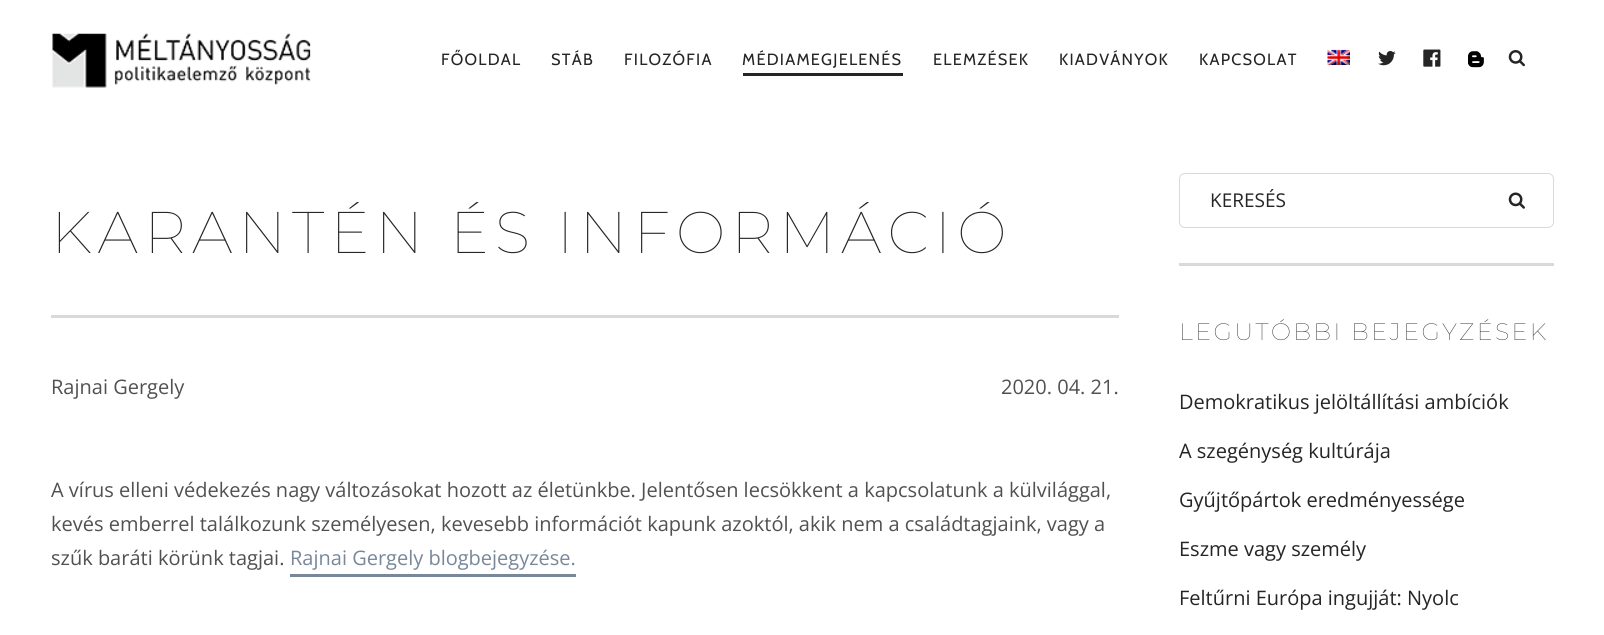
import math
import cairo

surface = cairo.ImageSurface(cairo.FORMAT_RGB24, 1604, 635)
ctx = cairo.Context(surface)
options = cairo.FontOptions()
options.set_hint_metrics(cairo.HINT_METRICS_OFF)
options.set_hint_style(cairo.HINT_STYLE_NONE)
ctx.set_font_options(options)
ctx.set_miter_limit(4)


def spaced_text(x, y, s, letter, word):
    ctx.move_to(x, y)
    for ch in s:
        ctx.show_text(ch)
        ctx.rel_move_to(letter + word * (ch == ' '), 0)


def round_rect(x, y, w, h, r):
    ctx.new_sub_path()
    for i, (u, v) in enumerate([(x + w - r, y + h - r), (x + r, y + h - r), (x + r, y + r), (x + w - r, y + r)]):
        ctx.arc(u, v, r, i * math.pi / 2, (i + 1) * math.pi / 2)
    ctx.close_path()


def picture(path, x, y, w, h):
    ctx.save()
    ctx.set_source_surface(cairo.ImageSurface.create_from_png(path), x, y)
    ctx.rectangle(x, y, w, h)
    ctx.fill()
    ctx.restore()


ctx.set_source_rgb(1, 1, 1)
ctx.paint()
picture("img1.png", 52, 33, 259, 55)
ctx.select_font_face("Cabin")
ctx.set_font_size(16.25)
ctx.set_source_rgb(0.145, 0.145, 0.145)
spaced_text(441, 65, "FŐOLDAL", 1.25, 0)
spaced_text(551, 65, "STÁB", 1.25, 0)
spaced_text(624, 65, "FILOZÓFIA", 1.25, 0)
spaced_text(742, 65, "MÉDIAMEGJELENÉS", 1.25, 0)
ctx.rectangle(743, 73, 160, 3)
ctx.fill()
spaced_text(933, 65, "ELEMZÉSEK", 1.25, 0)
spaced_text(1059, 65, "KIADVÁNYOK", 1.25, 0)
spaced_text(1199, 65, "KAPCSOLAT", 1.25, 0)
picture("img2.png", 1327, 49, 23, 16)
picture("img3.png", 1378, 51, 18, 15)
picture("img4.png", 1423, 49, 18, 18)
picture("img5.png", 1468, 51, 16, 17)
picture("img6.png", 1508, 50, 17, 17)
ctx.select_font_face("Montserrat Thin")
ctx.set_font_size(58.75)
spaced_text(51, 253, "KARANTÉN ÉS INFORMÁCIÓ", 5.9, 0)
ctx.set_source_rgb(0.851, 0.851, 0.851)
ctx.rectangle(51, 315, 1068, 3)
ctx.fill()
ctx.select_font_face("Open Sans")
ctx.set_font_size(20)
ctx.set_source_rgb(0.318, 0.318, 0.318)
ctx.move_to(51, 394)
ctx.show_text("Rajnai Gergely")
ctx.move_to(1001, 394)
ctx.show_text("2020. 04. 21.")
ctx.move_to(51, 497)
ctx.show_text("A vírus elleni védekezés nagy változásokat hozott az életünkbe. Jelentősen lecsökkent a kapcsolatunk a külvilággal,")
ctx.move_to(51, 531)
ctx.show_text("kevés emberrel találkozunk személyesen, kevesebb információt kapunk azoktól, akik nem a családtagjaink, vagy a")
ctx.move_to(51, 565)
ctx.show_text("szűk baráti körünk tagjai.")
ctx.set_source_rgb(0.471, 0.533, 0.6)
ctx.move_to(290, 565)
ctx.show_text("Rajnai Gergely blogbejegyzése.")
ctx.rectangle(290, 574, 286, 3)
ctx.fill()
ctx.set_source_rgb(0.851, 0.851, 0.851)
ctx.rectangle(1179, 263, 375, 3)
ctx.fill()
round_rect(1179.5, 173.5, 374, 54, 5.5)
ctx.set_line_width(1)
ctx.stroke()
ctx.set_font_size(19)
ctx.set_source_rgb(0.145, 0.145, 0.145)
ctx.move_to(1210, 207)
ctx.show_text("KERESÉS")
picture("img7.png", 1508, 192, 17, 17)
ctx.select_font_face("Montserrat Thin")
ctx.set_font_size(23.75)
spaced_text(1179, 340, "LEGUTÓBBI BEJEGYZÉSEK", 2.4, 0)
ctx.select_font_face("Open Sans")
ctx.set_font_size(20)
ctx.move_to(1179, 409)
ctx.show_text("Demokratikus jelöltállítási ambíciók")
ctx.move_to(1179, 458)
ctx.show_text("A szegénység kultúrája")
ctx.move_to(1179, 507)
ctx.show_text("Gyűjtőpártok eredményessége")
ctx.move_to(1179, 556)
ctx.show_text("Eszme vagy személy")
ctx.move_to(1179, 605)
ctx.show_text("Feltűrni Európa ingujját: Nyolc")
surface.write_to_png("page.png")
